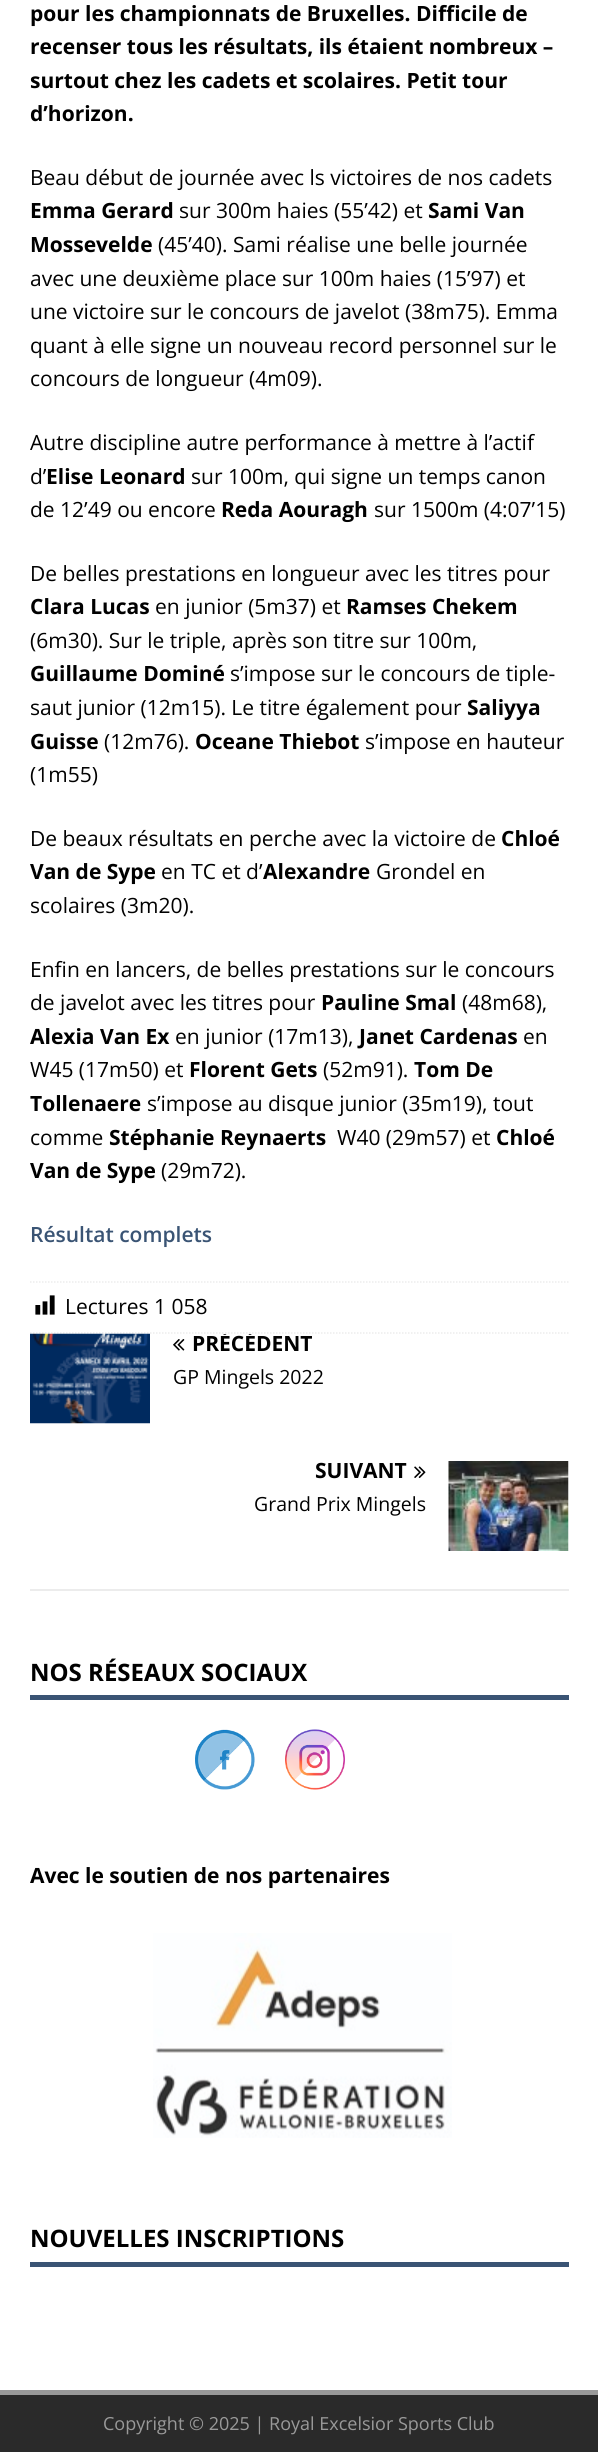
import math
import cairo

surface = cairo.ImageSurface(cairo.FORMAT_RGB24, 598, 2452)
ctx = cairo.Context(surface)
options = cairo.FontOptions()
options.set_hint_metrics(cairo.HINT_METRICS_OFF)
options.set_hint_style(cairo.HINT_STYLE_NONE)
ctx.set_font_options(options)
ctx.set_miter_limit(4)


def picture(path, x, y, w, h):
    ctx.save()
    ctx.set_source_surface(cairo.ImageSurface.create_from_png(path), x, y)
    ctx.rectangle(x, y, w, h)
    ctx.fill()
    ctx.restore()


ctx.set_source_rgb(1, 1, 1)
ctx.paint()
ctx.select_font_face("Open Sans", cairo.FONT_SLANT_NORMAL, cairo.FONT_WEIGHT_BOLD)
ctx.set_font_size(21)
ctx.set_source_rgb(0, 0, 0)
ctx.move_to(30, 21)
ctx.show_text("pour les championnats de Bruxelles. Difficile de")
ctx.move_to(30, 54)
ctx.show_text("recenser tous les résultats, ils étaient nombreux –")
ctx.move_to(30, 88)
ctx.show_text("surtout chez les cadets et scolaires. Petit tour")
ctx.move_to(30, 121)
ctx.show_text("d’horizon.")
ctx.select_font_face("Open Sans")
ctx.move_to(30, 185)
ctx.show_text("Beau début de journée avec ls victoires de nos cadets")
ctx.select_font_face("Open Sans", cairo.FONT_SLANT_NORMAL, cairo.FONT_WEIGHT_BOLD)
ctx.move_to(30, 218)
ctx.show_text("Emma Gerard")
ctx.select_font_face("Open Sans")
ctx.move_to(179, 218)
ctx.show_text("sur 300m haies (55’42) et")
ctx.select_font_face("Open Sans", cairo.FONT_SLANT_NORMAL, cairo.FONT_WEIGHT_BOLD)
ctx.move_to(428, 218)
ctx.show_text("Sami Van")
ctx.move_to(30, 252)
ctx.show_text("Mossevelde")
ctx.select_font_face("Open Sans")
ctx.move_to(158, 252)
ctx.show_text("(45’40). Sami réalise une belle journée")
ctx.move_to(30, 286)
ctx.show_text("avec une deuxième place sur 100m haies (15’97) et")
ctx.move_to(30, 319)
ctx.show_text("une victoire sur le concours de javelot (38m75). Emma")
ctx.move_to(30, 353)
ctx.show_text("quant à elle signe un nouveau record personnel sur le")
ctx.move_to(30, 386)
ctx.show_text("concours de longueur (4m09).")
ctx.move_to(30, 450)
ctx.show_text("Autre discipline autre performance à mettre à l’actif")
ctx.move_to(30, 484)
ctx.show_text("d’")
ctx.select_font_face("Open Sans", cairo.FONT_SLANT_NORMAL, cairo.FONT_WEIGHT_BOLD)
ctx.move_to(46, 484)
ctx.show_text("Elise Leonard")
ctx.select_font_face("Open Sans")
ctx.move_to(191, 484)
ctx.show_text("sur 100m, qui signe un temps canon")
ctx.move_to(30, 517)
ctx.show_text("de 12’49 ou encore")
ctx.select_font_face("Open Sans", cairo.FONT_SLANT_NORMAL, cairo.FONT_WEIGHT_BOLD)
ctx.move_to(221, 517)
ctx.show_text("Reda Aouragh")
ctx.select_font_face("Open Sans")
ctx.move_to(374, 517)
ctx.show_text("sur 1500m (4:07’15)")
ctx.move_to(30, 581)
ctx.show_text("De belles prestations en longueur avec les titres pour")
ctx.select_font_face("Open Sans", cairo.FONT_SLANT_NORMAL, cairo.FONT_WEIGHT_BOLD)
ctx.move_to(30, 614)
ctx.show_text("Clara Lucas")
ctx.select_font_face("Open Sans")
ctx.move_to(155, 614)
ctx.show_text("en junior (5m37) et")
ctx.select_font_face("Open Sans", cairo.FONT_SLANT_NORMAL, cairo.FONT_WEIGHT_BOLD)
ctx.move_to(346, 614)
ctx.show_text("Ramses Chekem")
ctx.select_font_face("Open Sans")
ctx.move_to(30, 648)
ctx.show_text("(6m30). Sur le triple, après son titre sur 100m,")
ctx.select_font_face("Open Sans", cairo.FONT_SLANT_NORMAL, cairo.FONT_WEIGHT_BOLD)
ctx.move_to(30, 681)
ctx.show_text("Guillaume Dominé")
ctx.select_font_face("Open Sans")
ctx.move_to(230, 681)
ctx.show_text("s’impose sur le concours de tiple-")
ctx.move_to(30, 715)
ctx.show_text("saut junior (12m15). Le titre également pour")
ctx.select_font_face("Open Sans", cairo.FONT_SLANT_NORMAL, cairo.FONT_WEIGHT_BOLD)
ctx.move_to(467, 715)
ctx.show_text("Saliyya")
ctx.move_to(30, 749)
ctx.show_text("Guisse")
ctx.select_font_face("Open Sans")
ctx.move_to(104, 749)
ctx.show_text("(12m76).")
ctx.select_font_face("Open Sans", cairo.FONT_SLANT_NORMAL, cairo.FONT_WEIGHT_BOLD)
ctx.move_to(195, 749)
ctx.show_text("Oceane Thiebot")
ctx.select_font_face("Open Sans")
ctx.move_to(365, 749)
ctx.show_text("s’impose en hauteur")
ctx.move_to(30, 782)
ctx.show_text("(1m55)")
ctx.move_to(30, 846)
ctx.show_text("De beaux résultats en perche avec la victoire de")
ctx.select_font_face("Open Sans", cairo.FONT_SLANT_NORMAL, cairo.FONT_WEIGHT_BOLD)
ctx.move_to(501, 846)
ctx.show_text("Chloé")
ctx.move_to(30, 879)
ctx.show_text("Van de Sype")
ctx.select_font_face("Open Sans")
ctx.move_to(161, 879)
ctx.show_text("en TC et d’")
ctx.select_font_face("Open Sans", cairo.FONT_SLANT_NORMAL, cairo.FONT_WEIGHT_BOLD)
ctx.move_to(263, 879)
ctx.show_text("Alexandre")
ctx.select_font_face("Open Sans")
ctx.move_to(376, 879)
ctx.show_text("Grondel en")
ctx.move_to(30, 913)
ctx.show_text("scolaires (3m20).")
ctx.move_to(30, 977)
ctx.show_text("Enfin en lancers, de belles prestations sur le concours")
ctx.move_to(30, 1010)
ctx.show_text("de javelot avec les titres pour")
ctx.select_font_face("Open Sans", cairo.FONT_SLANT_NORMAL, cairo.FONT_WEIGHT_BOLD)
ctx.move_to(321, 1010)
ctx.show_text("Pauline Smal")
ctx.select_font_face("Open Sans")
ctx.move_to(462, 1010)
ctx.show_text("(48m68),")
ctx.select_font_face("Open Sans", cairo.FONT_SLANT_NORMAL, cairo.FONT_WEIGHT_BOLD)
ctx.move_to(30, 1044)
ctx.show_text("Alexia Van Ex")
ctx.select_font_face("Open Sans")
ctx.move_to(175, 1044)
ctx.show_text("en junior (17m13),")
ctx.select_font_face("Open Sans", cairo.FONT_SLANT_NORMAL, cairo.FONT_WEIGHT_BOLD)
ctx.move_to(359, 1044)
ctx.show_text("Janet Cardenas")
ctx.select_font_face("Open Sans")
ctx.move_to(523, 1044)
ctx.show_text("en")
ctx.move_to(30, 1077)
ctx.show_text("W45 (17m50) et")
ctx.select_font_face("Open Sans", cairo.FONT_SLANT_NORMAL, cairo.FONT_WEIGHT_BOLD)
ctx.move_to(189, 1077)
ctx.show_text("Florent Gets")
ctx.select_font_face("Open Sans")
ctx.move_to(323, 1077)
ctx.show_text("(52m91).")
ctx.select_font_face("Open Sans", cairo.FONT_SLANT_NORMAL, cairo.FONT_WEIGHT_BOLD)
ctx.move_to(414, 1077)
ctx.show_text("Tom De")
ctx.move_to(30, 1111)
ctx.show_text("Tollenaere")
ctx.select_font_face("Open Sans")
ctx.move_to(147, 1111)
ctx.show_text("s’impose au disque junior (35m19), tout")
ctx.move_to(30, 1145)
ctx.show_text("comme")
ctx.select_font_face("Open Sans", cairo.FONT_SLANT_NORMAL, cairo.FONT_WEIGHT_BOLD)
ctx.move_to(109, 1145)
ctx.show_text("Stéphanie Reynaerts")
ctx.select_font_face("Open Sans")
ctx.move_to(337, 1145)
ctx.show_text("W40 (29m57) et")
ctx.select_font_face("Open Sans", cairo.FONT_SLANT_NORMAL, cairo.FONT_WEIGHT_BOLD)
ctx.move_to(496, 1145)
ctx.show_text("Chloé")
ctx.move_to(30, 1178)
ctx.show_text("Van de Sype")
ctx.select_font_face("Open Sans")
ctx.move_to(161, 1178)
ctx.show_text("(29m72).")
ctx.select_font_face("Open Sans SemiBold")
ctx.set_source_rgb(0.227, 0.329, 0.455)
ctx.move_to(30, 1242)
ctx.show_text("Résultat complets")
ctx.new_path()
ctx.move_to(30, 1282)
ctx.line_to(568.5, 1282)
ctx.set_source_rgb(0.922, 0.922, 0.922)
ctx.set_line_width(1.5)
ctx.set_dash([1.5, 1.5])
ctx.stroke()
ctx.new_path()
ctx.move_to(30, 1333)
ctx.line_to(568.5, 1333)
ctx.stroke()
picture("img1.png", 35, 1295, 20, 20)
ctx.select_font_face("Open Sans")
ctx.set_source_rgb(0, 0, 0)
ctx.move_to(65, 1314)
ctx.show_text("Lectures 1 058")
ctx.set_source_rgb(0.922, 0.922, 0.922)
ctx.rectangle(30, 1589, 539, 2)
ctx.fill()
picture("img2.png", 30, 1333, 120, 91)
picture("img3.png", 173, 1339, 12, 12)
ctx.save()
ctx.rectangle(173, 1334, 396, 21)
ctx.clip()
ctx.select_font_face("Open Sans", cairo.FONT_SLANT_NORMAL, cairo.FONT_WEIGHT_BOLD)
ctx.set_source_rgb(0, 0, 0)
ctx.move_to(192, 1351)
ctx.show_text("PRÉCÉDENT")
ctx.restore()
ctx.set_font_size(19.5)
ctx.set_source_rgb(0, 0, 0)
ctx.move_to(173, 1384)
ctx.show_text("GP Mingels 2022")
ctx.select_font_face("Open Sans", cairo.FONT_SLANT_NORMAL, cairo.FONT_WEIGHT_BOLD)
ctx.set_font_size(21)
ctx.move_to(315, 1478)
ctx.show_text("SUIVANT")
picture("img4.png", 414, 1466, 12, 12)
picture("img5.png", 448, 1461, 121, 90)
ctx.select_font_face("Open Sans")
ctx.set_font_size(19.5)
ctx.move_to(254, 1511)
ctx.show_text("Grand Prix Mingels")
ctx.set_source_rgb(0.227, 0.329, 0.455)
ctx.rectangle(30, 1695, 539, 5)
ctx.fill()
ctx.select_font_face("Open Sans", cairo.FONT_SLANT_NORMAL, cairo.FONT_WEIGHT_BOLD)
ctx.set_font_size(24)
ctx.set_source_rgb(0, 0, 0)
ctx.move_to(30, 1681)
ctx.show_text("NOS RÉSEAUX SOCIAUX")
picture("img6.png", 195, 1729, 60, 61)
picture("img7.png", 285, 1729, 60, 61)
ctx.set_font_size(21)
ctx.move_to(30, 1883)
ctx.show_text("Avec le soutien de nos partenaires")
picture("img8.png", 153, 1933, 299, 205)
ctx.set_source_rgb(0.227, 0.329, 0.455)
ctx.rectangle(30, 2262, 539, 5)
ctx.fill()
ctx.set_font_size(24)
ctx.set_source_rgb(0, 0, 0)
ctx.move_to(30, 2247)
ctx.show_text("NOUVELLES INSCRIPTIONS")
ctx.set_source_rgb(0.165, 0.165, 0.165)
ctx.rectangle(0, 2395, 598, 57)
ctx.fill()
ctx.set_source_rgb(0.6, 0.6, 0.6)
ctx.rectangle(0, 2390, 598, 5)
ctx.fill()
ctx.select_font_face("Open Sans")
ctx.set_font_size(18)
ctx.move_to(103, 2430)
ctx.show_text("Copyright © 2025 | Royal Excelsior Sports Club")
surface.write_to_png("page.png")
